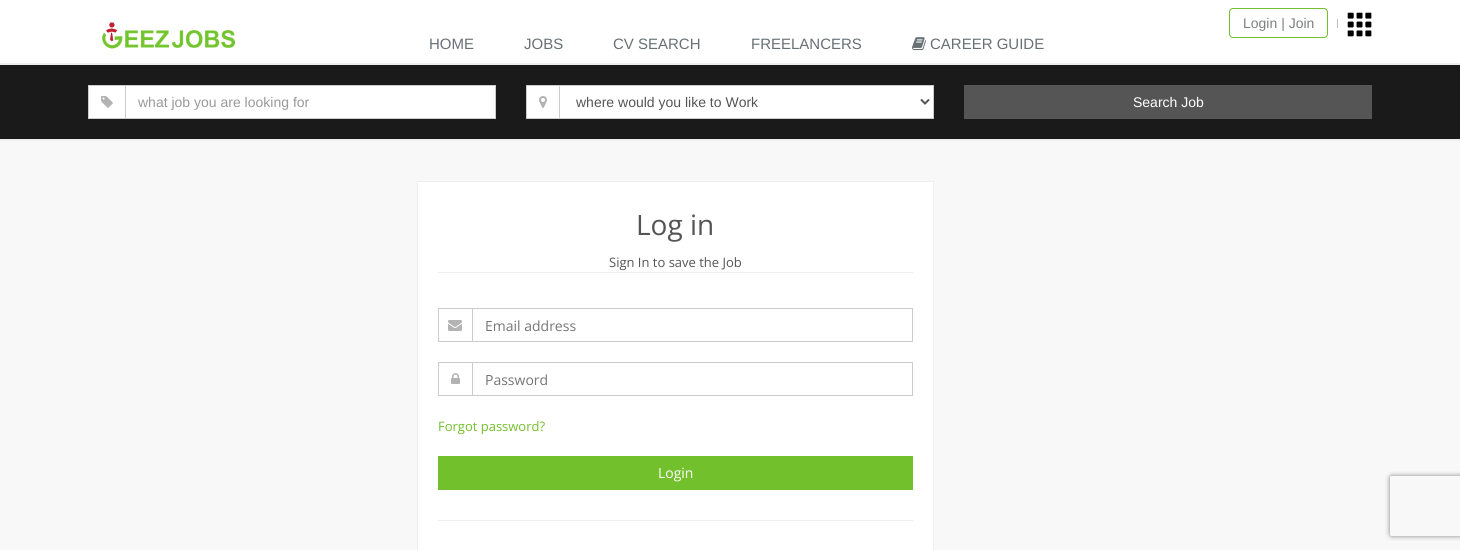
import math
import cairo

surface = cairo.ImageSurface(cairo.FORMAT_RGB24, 1460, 550)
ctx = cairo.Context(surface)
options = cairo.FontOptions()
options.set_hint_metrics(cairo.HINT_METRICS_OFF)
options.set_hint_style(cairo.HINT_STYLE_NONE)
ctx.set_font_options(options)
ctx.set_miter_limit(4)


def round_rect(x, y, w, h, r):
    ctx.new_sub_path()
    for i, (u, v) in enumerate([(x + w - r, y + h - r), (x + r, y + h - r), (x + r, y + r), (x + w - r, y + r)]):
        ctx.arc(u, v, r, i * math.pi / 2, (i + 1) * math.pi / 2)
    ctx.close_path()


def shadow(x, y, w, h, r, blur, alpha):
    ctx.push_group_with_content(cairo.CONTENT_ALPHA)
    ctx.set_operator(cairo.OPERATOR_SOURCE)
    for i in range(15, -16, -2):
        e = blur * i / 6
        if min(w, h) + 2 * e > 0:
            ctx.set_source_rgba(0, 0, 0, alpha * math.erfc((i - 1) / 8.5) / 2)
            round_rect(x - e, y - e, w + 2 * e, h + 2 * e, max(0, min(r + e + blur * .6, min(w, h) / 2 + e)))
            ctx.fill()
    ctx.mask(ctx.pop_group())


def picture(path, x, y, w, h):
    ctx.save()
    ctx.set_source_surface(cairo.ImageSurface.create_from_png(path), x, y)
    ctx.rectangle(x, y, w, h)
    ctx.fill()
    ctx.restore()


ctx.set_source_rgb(1, 1, 1)
ctx.paint()
ctx.set_source_rgb(0.933, 0.933, 0.933)
ctx.rectangle(0, 63, 1460, 2)
ctx.fill()
picture("img1.png", 102, 22, 134, 27)
round_rect(1229.5, 8.5, 98, 29, 3.5)
ctx.set_source_rgb(0.447, 0.753, 0.173)
ctx.set_line_width(1)
ctx.stroke()
ctx.select_font_face("Liberation Sans")
ctx.set_font_size(14)
ctx.set_source_rgb(0.486, 0.502, 0.51)
ctx.move_to(1243, 28)
ctx.show_text("Login | Join")
ctx.set_source_rgb(0.733, 0.733, 0.733)
ctx.rectangle(1337, 19, 1, 9)
ctx.fill()
picture("img2.png", 1347, 12, 25, 25)
ctx.set_font_size(15)
ctx.set_source_rgb(0.408, 0.439, 0.455)
ctx.move_to(429, 49)
ctx.show_text("HOME")
ctx.move_to(524, 49)
ctx.show_text("JOBS")
ctx.move_to(613, 49)
ctx.show_text("CV SEARCH")
ctx.move_to(751, 49)
ctx.show_text("FREELANCERS")
picture("img3.png", 912, 37, 14, 14)
ctx.move_to(930, 49)
ctx.show_text("CAREER GUIDE")
ctx.set_source_rgb(0.102, 0.102, 0.102)
ctx.rectangle(0, 65, 1460, 74)
ctx.fill()
ctx.set_source_rgb(1, 1, 1)
ctx.rectangle(89, 86, 36, 32)
ctx.fill()
ctx.set_source_rgb(0.8, 0.8, 0.8)
ctx.rectangle(88, 85, 37, 1)
ctx.fill()
ctx.rectangle(88, 118, 37, 1)
ctx.fill()
ctx.rectangle(88, 85, 1, 34)
ctx.fill()
picture("img4.png", 101, 96, 12, 12)
ctx.set_source_rgb(1, 1, 1)
ctx.rectangle(125.5, 85.5, 370, 33)
ctx.fill_preserve()
ctx.set_source_rgb(0.8, 0.8, 0.8)
ctx.stroke()
ctx.set_font_size(14)
ctx.set_source_rgb(0.6, 0.6, 0.6)
ctx.move_to(138, 107)
ctx.show_text("what job you are looking for")
ctx.set_source_rgb(1, 1, 1)
ctx.rectangle(527, 86, 32, 32)
ctx.fill()
ctx.set_source_rgb(0.8, 0.8, 0.8)
ctx.rectangle(526, 85, 33, 1)
ctx.fill()
ctx.rectangle(526, 118, 33, 1)
ctx.fill()
ctx.rectangle(526, 85, 1, 34)
ctx.fill()
picture("img5.png", 539, 96, 8, 12)
ctx.set_source_rgb(1, 1, 1)
ctx.rectangle(559.5, 85.5, 374, 33)
ctx.fill_preserve()
ctx.set_source_rgb(0.8, 0.8, 0.8)
ctx.stroke()
ctx.new_path()
ctx.move_to(921, 99.5)
ctx.line_to(925, 103.5)
ctx.line_to(929, 99.5)
ctx.set_source_rgb(0.333, 0.333, 0.333)
ctx.set_line_width(2)
ctx.stroke()
ctx.move_to(576, 107)
ctx.show_text("where would you like to Work")
ctx.rectangle(964, 85, 408, 34)
ctx.fill()
ctx.set_source_rgb(1, 1, 1)
ctx.move_to(1133, 107)
ctx.show_text("Search Job")
ctx.set_source_rgb(0.969, 0.969, 0.969)
ctx.rectangle(0, 141, 1460, 409)
ctx.fill()
ctx.set_source_rgb(0.933, 0.933, 0.933)
ctx.rectangle(0, 139, 1460, 2)
ctx.fill()
ctx.set_source_rgb(1, 1, 1)
ctx.rectangle(417.5, 181.5, 516, 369)
ctx.fill_preserve()
ctx.set_source_rgb(0.933, 0.933, 0.933)
ctx.set_line_width(1)
ctx.stroke()
ctx.rectangle(438, 272, 475, 1)
ctx.fill()
ctx.select_font_face("Open Sans")
ctx.set_font_size(28)
ctx.set_source_rgb(0.333, 0.333, 0.333)
ctx.move_to(636, 235)
ctx.show_text("Log in")
ctx.set_font_size(13)
ctx.move_to(609, 267)
ctx.show_text("Sign In to save the Job")
ctx.rectangle(438.5, 308.5, 474, 33)
ctx.set_source_rgb(0.8, 0.8, 0.8)
ctx.stroke()
ctx.rectangle(472, 309, 1, 32)
ctx.fill()
picture("img6.png", 448, 320, 14, 11)
ctx.set_font_size(14)
ctx.set_source_rgb(0.459, 0.459, 0.459)
ctx.move_to(485, 331)
ctx.show_text("Email address")
ctx.rectangle(438.5, 362.5, 474, 33)
ctx.set_source_rgb(0.8, 0.8, 0.8)
ctx.stroke()
ctx.rectangle(472, 363, 1, 32)
ctx.fill()
picture("img7.png", 451, 373, 9, 11)
ctx.set_source_rgb(0.459, 0.459, 0.459)
ctx.move_to(485, 385)
ctx.show_text("Password")
ctx.set_font_size(13)
ctx.set_source_rgb(0.447, 0.753, 0.173)
ctx.move_to(438, 431)
ctx.show_text("Forgot password?")
ctx.rectangle(438, 456, 475, 34)
ctx.fill()
ctx.set_font_size(14)
ctx.set_source_rgb(1, 1, 1)
ctx.move_to(658, 478)
ctx.show_text("Login")
ctx.save()
ctx.set_fill_rule(cairo.FILL_RULE_EVEN_ODD)
ctx.new_path()
ctx.move_to(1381, 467)
ctx.line_to(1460, 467)
ctx.line_to(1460, 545)
ctx.line_to(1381, 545)
ctx.close_path()
ctx.move_to(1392, 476)
ctx.line_to(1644, 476)
ctx.curve_to(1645, 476, 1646, 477, 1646, 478)
ctx.line_to(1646, 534)
ctx.curve_to(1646, 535, 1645, 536, 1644, 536)
ctx.line_to(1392, 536)
ctx.curve_to(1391, 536, 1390, 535, 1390, 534)
ctx.line_to(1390, 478)
ctx.curve_to(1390, 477, 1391, 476, 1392, 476)
ctx.close_path()
ctx.clip()
ctx.set_source_rgb(0.502, 0.502, 0.502)
shadow(1390, 476, 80, 60, 2, 2.5, 1)
ctx.restore()
ctx.set_source_rgb(0.933, 0.933, 0.933)
ctx.rectangle(438, 520, 475, 1)
ctx.fill()
surface.write_to_png("page.png")
